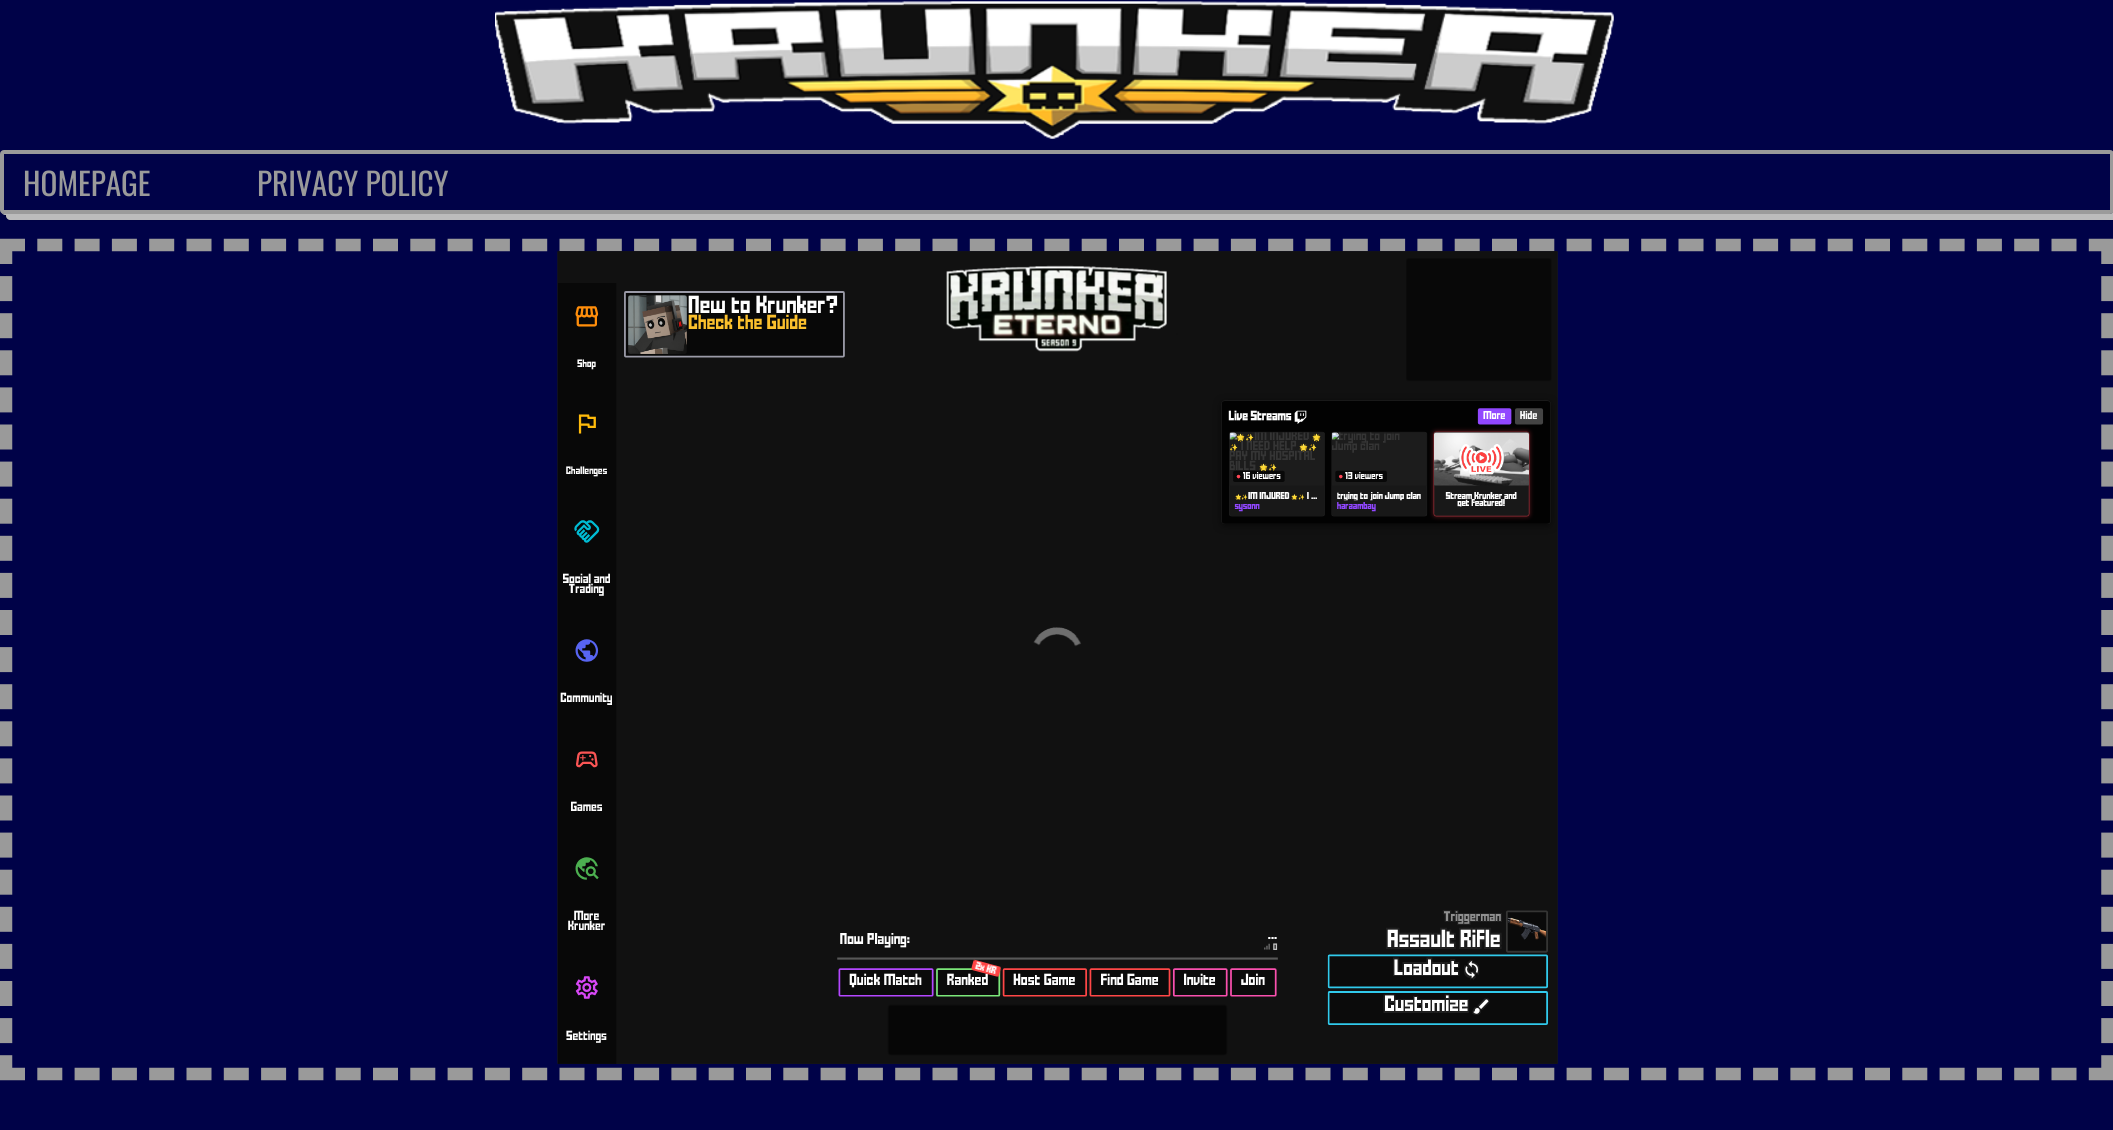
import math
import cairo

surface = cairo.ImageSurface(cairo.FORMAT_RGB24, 2113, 1130)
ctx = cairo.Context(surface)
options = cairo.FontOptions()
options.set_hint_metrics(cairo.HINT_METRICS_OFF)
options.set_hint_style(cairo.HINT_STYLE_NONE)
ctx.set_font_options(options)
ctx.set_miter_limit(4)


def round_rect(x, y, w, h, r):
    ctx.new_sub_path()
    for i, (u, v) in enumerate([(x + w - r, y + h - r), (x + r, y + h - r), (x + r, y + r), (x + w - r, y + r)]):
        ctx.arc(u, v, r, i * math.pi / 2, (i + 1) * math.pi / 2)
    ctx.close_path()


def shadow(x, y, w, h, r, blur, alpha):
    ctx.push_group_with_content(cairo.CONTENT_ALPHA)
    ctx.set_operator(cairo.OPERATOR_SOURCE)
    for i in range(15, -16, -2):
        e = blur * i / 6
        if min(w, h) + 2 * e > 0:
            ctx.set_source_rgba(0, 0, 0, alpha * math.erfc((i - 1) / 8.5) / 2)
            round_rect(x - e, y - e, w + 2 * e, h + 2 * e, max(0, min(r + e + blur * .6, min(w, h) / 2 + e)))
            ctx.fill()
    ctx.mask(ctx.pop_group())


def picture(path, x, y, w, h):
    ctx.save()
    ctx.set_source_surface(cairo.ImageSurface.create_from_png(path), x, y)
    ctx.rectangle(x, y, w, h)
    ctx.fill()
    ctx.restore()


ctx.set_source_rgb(0, 0.008, 0.282)
ctx.paint()
picture("img1.png", 495, 1, 1119, 138)
ctx.set_source_rgb(0, 0, 0)
shadow(4, 154, 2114, 64, 4, 2, 0.35)
ctx.set_source_rgb(0.733, 0.733, 0.733)
ctx.new_path()
ctx.move_to(6, 214)
ctx.line_to(6, 216)
ctx.curve_to(6, 218, 8, 220, 10, 220)
ctx.line_to(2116, 220)
ctx.curve_to(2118, 220, 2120, 218, 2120, 216)
ctx.line_to(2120, 160)
ctx.curve_to(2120, 158, 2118, 156, 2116, 156)
ctx.line_to(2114, 156)
ctx.line_to(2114, 210)
ctx.curve_to(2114, 212, 2112, 214, 2110, 214)
ctx.close_path()
ctx.fill()
ctx.new_path()
ctx.move_to(2, 213)
ctx.curve_to(2, 214, 4, 215, 5, 215)
ctx.line_to(2111, 215)
ctx.curve_to(2113, 215, 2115, 213, 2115, 211)
ctx.line_to(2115, 155)
ctx.curve_to(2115, 154, 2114, 152, 2113, 152)
ctx.line_to(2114, 154)
ctx.line_to(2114, 210)
ctx.curve_to(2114, 212, 2112, 214, 2110, 214)
ctx.line_to(4, 214)
ctx.close_path()
ctx.fill()
ctx.set_source_rgb(0, 0.008, 0.282)
round_rect(2, 152, 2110, 60, 2)
ctx.fill_preserve()
ctx.set_source_rgb(0.604, 0.604, 0.604)
ctx.set_line_width(4)
ctx.stroke()
ctx.select_font_face("Oswald")
ctx.set_font_size(31.25)
ctx.move_to(23, 196)
ctx.show_text("HOMEPAGE")
ctx.move_to(257, 196)
ctx.show_text("PRIVACY POLICY")
ctx.new_path()
ctx.move_to(0, 245)
ctx.line_to(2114, 245)
ctx.set_line_width(12.5)
ctx.set_dash([25, 12.3])
ctx.stroke()
ctx.new_path()
ctx.move_to(2107.5, 239)
ctx.line_to(2107.5, 1080)
ctx.set_dash([25, 12.1])
ctx.stroke()
ctx.new_path()
ctx.move_to(0, 1074)
ctx.line_to(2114, 1074)
ctx.set_dash([25, 12.3])
ctx.stroke()
ctx.new_path()
ctx.move_to(6, 239)
ctx.line_to(6, 1080)
ctx.set_dash([25, 12.1])
ctx.stroke()
picture("img2.png", 557, 251, 1001, 813)
surface.write_to_png("page.png")
